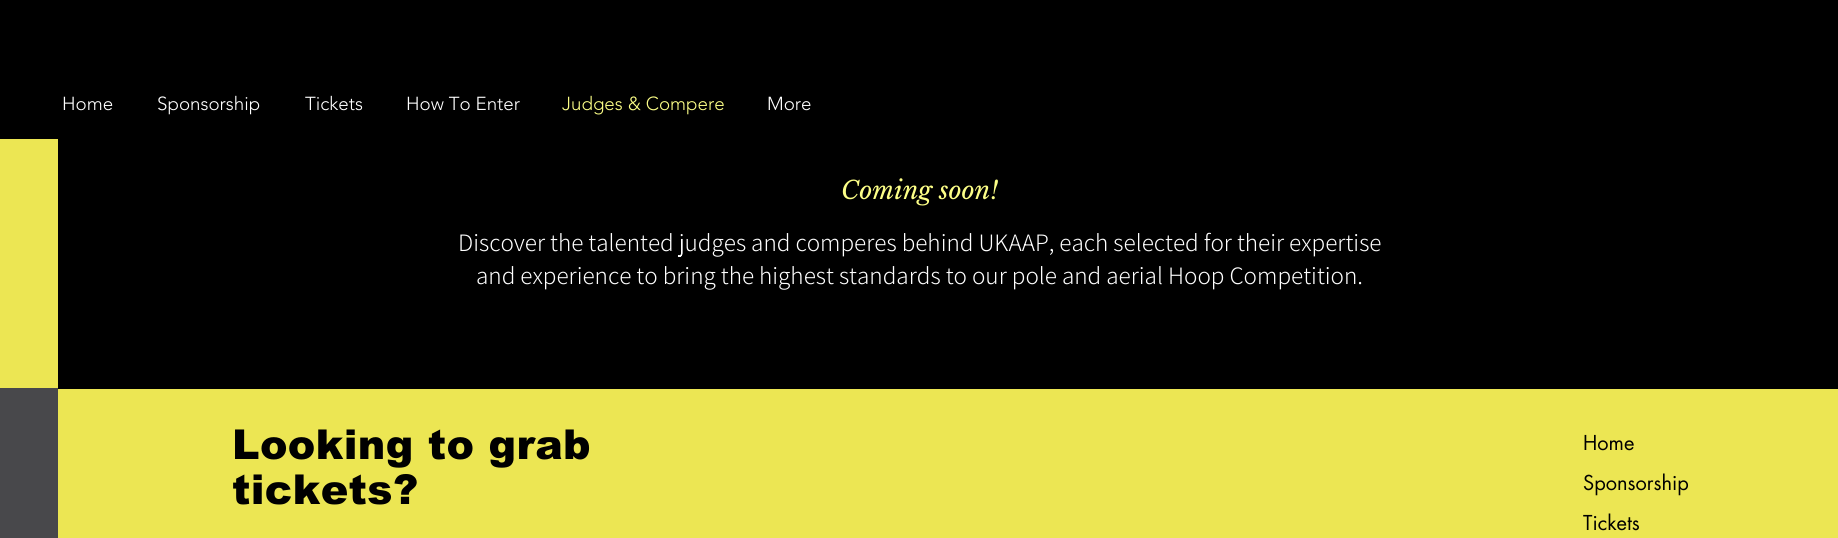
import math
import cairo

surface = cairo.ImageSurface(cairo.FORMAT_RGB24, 1838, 538)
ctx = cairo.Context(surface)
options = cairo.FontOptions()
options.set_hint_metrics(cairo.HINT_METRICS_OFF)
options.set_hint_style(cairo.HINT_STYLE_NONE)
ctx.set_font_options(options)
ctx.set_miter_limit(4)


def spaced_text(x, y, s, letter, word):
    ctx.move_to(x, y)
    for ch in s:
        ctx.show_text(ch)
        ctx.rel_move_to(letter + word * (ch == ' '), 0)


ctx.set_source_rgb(0, 0, 0)
ctx.paint()
ctx.select_font_face("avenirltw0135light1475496 Light")
ctx.set_font_size(18.75)
ctx.set_source_rgb(1, 1, 1)
ctx.move_to(62, 110)
ctx.show_text("Home")
ctx.move_to(157, 110)
ctx.show_text("Sponsorship")
ctx.move_to(305, 110)
ctx.show_text("Tickets")
ctx.move_to(406, 110)
ctx.show_text("How To Enter")
ctx.set_source_rgb(0.992, 1, 0.529)
ctx.move_to(562, 110)
ctx.show_text("Judges & Compere")
ctx.set_source_rgb(1, 1, 1)
ctx.move_to(767, 110)
ctx.show_text("More")
ctx.set_source_rgb(0.922, 0.902, 0.325)
ctx.rectangle(0, 139, 58, 249)
ctx.fill()
ctx.set_source_rgb(0.282, 0.282, 0.294)
ctx.rectangle(0, 388, 58, 150)
ctx.fill()
ctx.select_font_face("Libre Baskerville", cairo.FONT_SLANT_ITALIC)
ctx.set_font_size(25)
ctx.set_source_rgb(0.992, 1, 0.529)
ctx.move_to(841, 199)
ctx.show_text("Coming soon!")
ctx.select_font_face("Assistant Light")
ctx.set_source_rgb(1, 1, 1)
ctx.move_to(458, 251)
ctx.show_text("Discover the talented judges and comperes behind UKAAP, each selected for their expertise")
ctx.move_to(476, 284)
ctx.show_text("and experience to bring the highest standards to our pole and aerial Hoop Competition.")
ctx.set_source_rgb(0.922, 0.902, 0.325)
ctx.rectangle(58, 389, 1780, 149)
ctx.fill()
ctx.select_font_face("arial Black")
ctx.set_font_size(41.25)
ctx.set_source_rgb(0, 0, 0)
spaced_text(232, 459, "Looking to grab", 0.4, 0)
spaced_text(232, 504, "tickets?", 0.4, 0)
ctx.select_font_face("futura")
ctx.set_font_size(20)
ctx.move_to(1583, 450)
ctx.show_text("Home")
ctx.move_to(1583, 490)
ctx.show_text("Sponsorship")
ctx.move_to(1583, 530)
ctx.show_text("Tickets")
surface.write_to_png("page.png")
